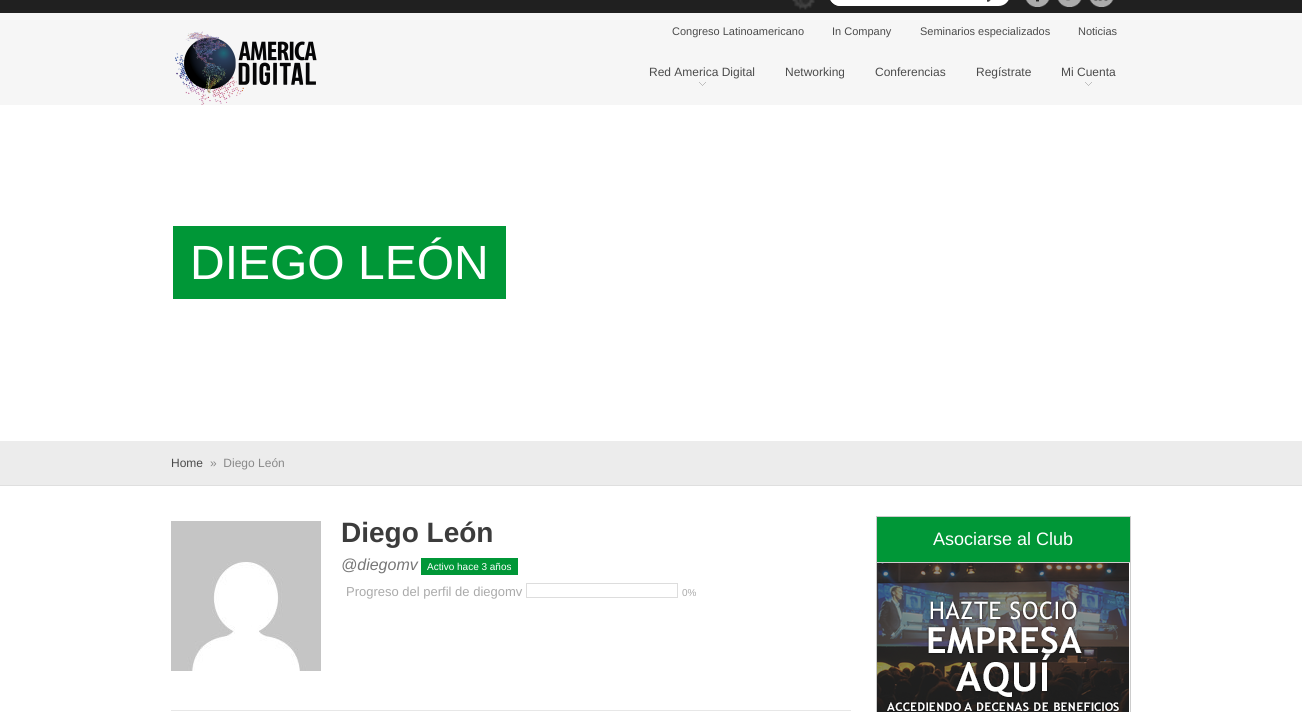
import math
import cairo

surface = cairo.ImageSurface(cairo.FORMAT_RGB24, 1302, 712)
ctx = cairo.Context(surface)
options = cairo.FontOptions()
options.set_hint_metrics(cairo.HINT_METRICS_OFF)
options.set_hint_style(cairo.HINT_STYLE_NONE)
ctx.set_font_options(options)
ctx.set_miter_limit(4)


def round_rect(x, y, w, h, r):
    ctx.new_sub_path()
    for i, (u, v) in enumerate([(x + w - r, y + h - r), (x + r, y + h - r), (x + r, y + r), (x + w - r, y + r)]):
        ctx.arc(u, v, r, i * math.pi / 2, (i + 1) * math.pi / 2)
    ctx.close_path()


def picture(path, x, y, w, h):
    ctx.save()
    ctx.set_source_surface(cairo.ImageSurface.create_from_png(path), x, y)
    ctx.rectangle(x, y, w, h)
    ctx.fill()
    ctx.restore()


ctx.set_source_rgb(1, 1, 1)
ctx.paint()
ctx.set_source_rgb(0.125, 0.125, 0.125)
ctx.rectangle(0, 0, 1302, 13)
ctx.fill()
picture("img1.png", 792, 0, 23, 10)
ctx.set_source_rgb(1, 1, 1)
round_rect(829, -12, 181, 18, 11.5)
ctx.fill()
ctx.new_path()
ctx.move_to(840.5, -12)
ctx.line_to(981, -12)
ctx.line_to(981, 6)
ctx.line_to(840.5, 6)
ctx.curve_to(834, 6, 829, 1, 829, -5.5)
ctx.line_to(829, -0.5)
ctx.curve_to(829, -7, 834, -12, 840.5, -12)
ctx.close_path()
ctx.fill()
picture("img2.png", 987, 0, 4, 2)
picture("img3.png", 1025, 0, 25, 7)
picture("img4.png", 1057, 0, 25, 7)
picture("img5.png", 1089, 0, 25, 7)
ctx.set_source_rgb(0.961, 0.961, 0.961)
ctx.rectangle(0, 13, 1302, 92)
ctx.fill()
picture("img6.png", 175, 31, 142, 74)
ctx.select_font_face("Liberation Sans")
ctx.set_font_size(11)
ctx.set_source_rgb(0.294, 0.294, 0.294)
ctx.move_to(672, 35)
ctx.show_text("Congreso Latinoamericano")
ctx.move_to(832, 35)
ctx.show_text("In Company")
ctx.move_to(920, 35)
ctx.show_text("Seminarios especializados")
ctx.move_to(1078, 35)
ctx.show_text("Noticias")
picture("img7.png", 699, 82, 7, 4)
ctx.set_font_size(12)
ctx.move_to(649, 76)
ctx.show_text("Red America Digital")
ctx.move_to(785, 76)
ctx.show_text("Networking")
ctx.move_to(875, 76)
ctx.show_text("Conferencias")
ctx.move_to(976, 76)
ctx.show_text("Regístrate")
picture("img7.png", 1085, 82, 7, 4)
ctx.move_to(1061, 76)
ctx.show_text("Mi Cuenta")
ctx.set_source_rgb(0, 0.592, 0.216)
ctx.rectangle(173, 226, 333, 73)
ctx.fill()
ctx.set_font_size(48)
ctx.set_source_rgb(1, 1, 1)
ctx.move_to(190, 279)
ctx.show_text("DIEGO LEÓN")
ctx.set_source_rgb(0.925, 0.925, 0.925)
ctx.rectangle(0, 441, 1302, 44)
ctx.fill()
ctx.set_source_rgb(0.875, 0.875, 0.875)
ctx.rectangle(0, 485, 1302, 1)
ctx.fill()
ctx.set_font_size(12)
ctx.set_source_rgb(0.294, 0.294, 0.294)
ctx.move_to(171, 467)
ctx.show_text("Home")
ctx.set_source_rgb(0.537, 0.537, 0.537)
ctx.move_to(210, 467)
ctx.show_text("»  Diego León")
picture("img8.png", 171, 521, 150, 150)
ctx.select_font_face("Liberation Sans", cairo.FONT_SLANT_NORMAL, cairo.FONT_WEIGHT_BOLD)
ctx.set_font_size(28)
ctx.set_source_rgb(0.235, 0.235, 0.235)
ctx.move_to(341, 542)
ctx.show_text("Diego León")
ctx.select_font_face("Liberation Sans", cairo.FONT_SLANT_ITALIC)
ctx.set_font_size(16)
ctx.set_source_rgb(0.467, 0.467, 0.467)
ctx.move_to(341, 570)
ctx.show_text("@diegomv")
ctx.set_source_rgb(0, 0.592, 0.216)
ctx.rectangle(421, 558, 97, 17)
ctx.fill()
ctx.select_font_face("Liberation Sans")
ctx.set_font_size(10)
ctx.set_source_rgb(1, 1, 1)
ctx.move_to(427, 570)
ctx.show_text("Activo hace 3 años")
ctx.set_font_size(13)
ctx.set_source_rgb(0.667, 0.667, 0.667)
ctx.move_to(346, 596)
ctx.show_text("Progreso del perfil de diegomv")
ctx.rectangle(526.5, 583.5, 151, 14)
ctx.set_source_rgb(0.867, 0.867, 0.867)
ctx.set_line_width(1)
ctx.stroke()
ctx.set_font_size(10)
ctx.set_source_rgb(0.667, 0.667, 0.667)
ctx.move_to(682, 596)
ctx.show_text("0%")
ctx.set_source_rgb(0.906, 0.906, 0.906)
ctx.rectangle(171, 710, 680, 1)
ctx.fill()
ctx.rectangle(876.5, 516.5, 254, 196)
ctx.set_source_rgb(0.8, 0.8, 0.8)
ctx.stroke()
ctx.set_source_rgb(0, 0.592, 0.216)
ctx.rectangle(877, 517, 253, 45)
ctx.fill()
ctx.set_source_rgb(0.8, 0.8, 0.8)
ctx.rectangle(877, 562, 253, 1)
ctx.fill()
ctx.set_font_size(18)
ctx.set_source_rgb(1, 1, 1)
ctx.move_to(933, 545)
ctx.show_text("Asociarse al Club")
picture("img9.png", 877, 563, 252, 149)
surface.write_to_png("page.png")
